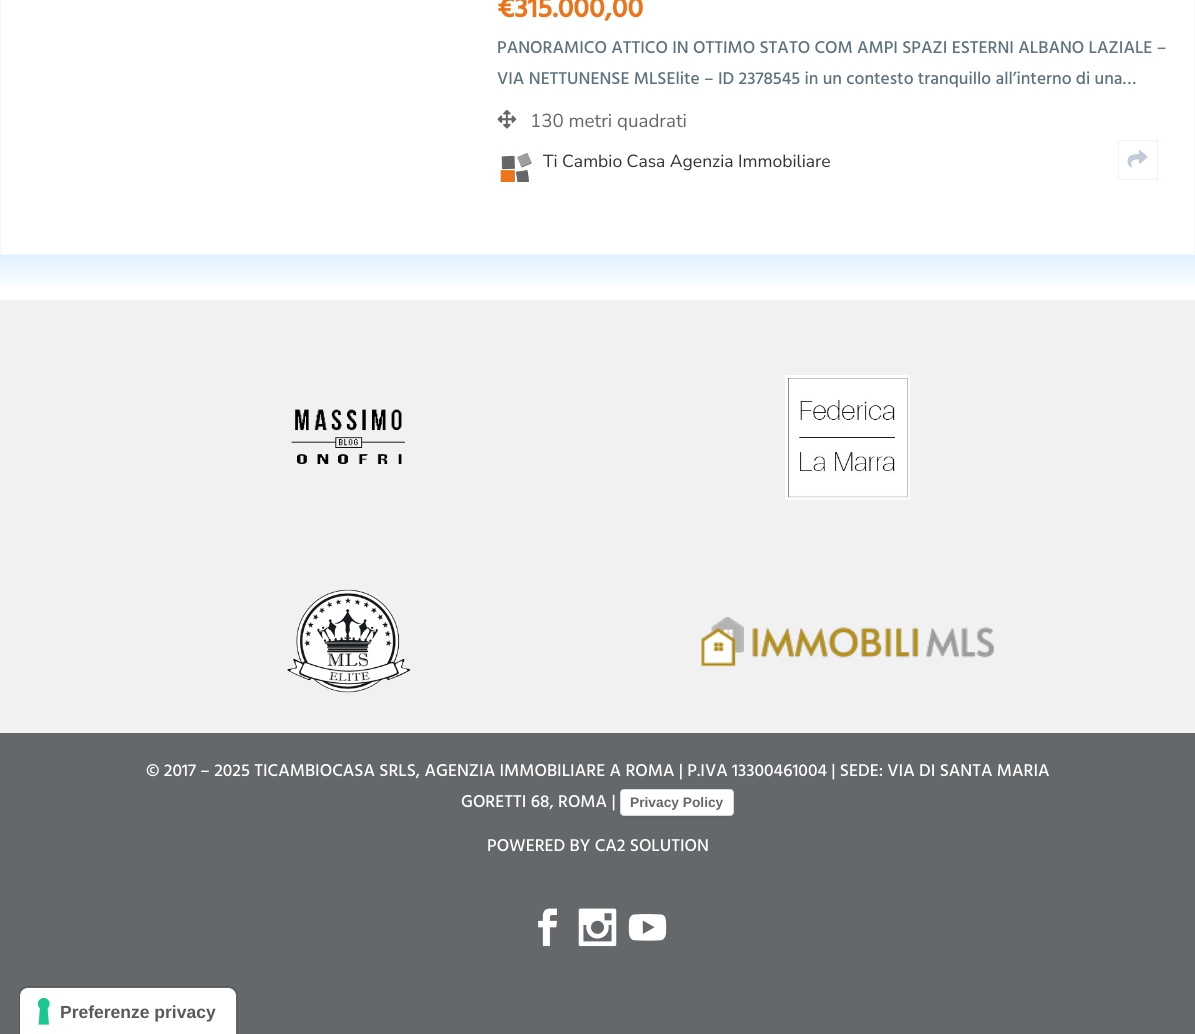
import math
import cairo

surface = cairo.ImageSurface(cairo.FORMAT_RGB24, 1195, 1034)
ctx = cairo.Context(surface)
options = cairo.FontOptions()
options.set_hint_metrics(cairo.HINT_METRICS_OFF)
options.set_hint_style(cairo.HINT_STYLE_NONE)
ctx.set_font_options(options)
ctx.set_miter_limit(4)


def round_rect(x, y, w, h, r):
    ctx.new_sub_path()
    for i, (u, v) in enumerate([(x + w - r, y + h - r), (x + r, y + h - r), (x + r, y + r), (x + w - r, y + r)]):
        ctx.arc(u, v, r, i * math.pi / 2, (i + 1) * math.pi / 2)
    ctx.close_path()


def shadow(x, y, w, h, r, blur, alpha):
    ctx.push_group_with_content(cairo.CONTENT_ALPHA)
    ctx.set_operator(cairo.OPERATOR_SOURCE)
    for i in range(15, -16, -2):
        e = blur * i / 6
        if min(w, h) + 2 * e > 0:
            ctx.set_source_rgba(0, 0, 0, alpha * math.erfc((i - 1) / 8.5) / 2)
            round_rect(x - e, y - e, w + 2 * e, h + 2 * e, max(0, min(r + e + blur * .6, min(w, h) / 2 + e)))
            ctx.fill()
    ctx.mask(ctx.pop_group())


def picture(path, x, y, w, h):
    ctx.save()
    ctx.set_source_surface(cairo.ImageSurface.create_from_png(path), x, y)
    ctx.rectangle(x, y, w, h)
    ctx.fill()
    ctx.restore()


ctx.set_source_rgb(1, 1, 1)
ctx.paint()
ctx.save()
ctx.rectangle(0, 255, 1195, 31)
ctx.clip()
ctx.set_source_rgb(0.027, 0.596, 1)
shadow(-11, -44, 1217, 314, 0, 14.5, 0.15)
ctx.restore()
ctx.rectangle(0.5, -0.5, 1194, 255)
ctx.set_source_rgb(0.945, 0.973, 1)
ctx.set_line_width(1)
ctx.stroke()
ctx.select_font_face("Hind", cairo.FONT_SLANT_NORMAL, cairo.FONT_WEIGHT_BOLD)
ctx.set_font_size(28.75)
ctx.set_source_rgb(0.929, 0.455, 0.106)
ctx.move_to(497, 17)
ctx.show_text("€315.000,00")
ctx.select_font_face("Hind Medium")
ctx.set_font_size(17.5)
ctx.set_source_rgb(0.361, 0.447, 0.49)
ctx.move_to(497, 53)
ctx.show_text("PANORAMICO ATTICO IN OTTIMO STATO COM AMPI SPAZI ESTERNI ALBANO LAZIALE –")
ctx.move_to(497, 84)
ctx.show_text("VIA NETTUNENSE MLSElite – ID 2378545 in un contesto tranquillo all’interno di una…")
picture("img1.png", 497, 109, 20, 20)
ctx.select_font_face("Nunito Sans")
ctx.set_font_size(18.75)
ctx.set_source_rgb(0.4, 0.4, 0.4)
ctx.move_to(530, 127)
ctx.show_text("130 metri quadrati")
picture("img2.png", 500, 152, 32, 30)
ctx.set_font_size(17.5)
ctx.set_source_rgb(0.2, 0.2, 0.2)
ctx.move_to(543, 167)
ctx.show_text("Ti Cambio Casa Agenzia Immobiliare")
ctx.rectangle(1118.5, 140.5, 39, 39)
ctx.set_source_rgb(0.933, 0.953, 0.965)
ctx.stroke()
picture("img3.png", 1127, 150, 21, 18)
ctx.set_source_rgb(0.945, 0.945, 0.945)
ctx.rectangle(0, 300, 1195, 433)
ctx.fill()
picture("img4.png", 291, 409, 114, 55)
picture("img5.png", 785, 375, 125, 125)
picture("img6.png", 287, 589, 124, 104)
picture("img7.png", 701, 616, 293, 51)
ctx.set_source_rgb(0.392, 0.408, 0.42)
ctx.rectangle(0, 733, 1195, 301)
ctx.fill()
ctx.select_font_face("Hind Medium")
ctx.set_source_rgb(1, 1, 1)
ctx.move_to(146, 776)
ctx.show_text("© 2017 – 2025 TICAMBIOCASA SRLS, AGENZIA IMMOBILIARE A ROMA | P.IVA 13300461004 | SEDE: VIA DI SANTA MARIA")
ctx.move_to(461, 807)
ctx.show_text("GORETTI 68, ROMA |")
ctx.set_source_rgb(0, 0, 0)
shadow(621, 791, 112, 25, 2.5, 0.5, 0.15)
ctx.set_source_rgb(1, 1, 1)
round_rect(620, 789, 114, 27, 4)
ctx.fill()
round_rect(620.5, 789.5, 113, 26, 3.5)
ctx.set_source_rgba(0, 0, 0, 0.15)
ctx.stroke()
ctx.select_font_face("Liberation Sans", cairo.FONT_SLANT_NORMAL, cairo.FONT_WEIGHT_BOLD)
ctx.set_font_size(13.75)
ctx.set_source_rgb(0.4, 0.4, 0.4)
ctx.move_to(630, 807)
ctx.show_text("Privacy Policy")
ctx.select_font_face("Hind Medium")
ctx.set_font_size(17.5)
ctx.set_source_rgb(1, 1, 1)
ctx.move_to(487, 851)
ctx.show_text("POWERED BY CA2 SOLUTION")
picture("img8.png", 538, 908, 19, 39)
picture("img9.png", 578, 908, 39, 39)
picture("img10.png", 628, 914, 39, 27)
ctx.new_path()
ctx.move_to(28, 986.5)
ctx.line_to(229, 986.5)
ctx.curve_to(233.5, 986.5, 237.5, 990.5, 237.5, 995)
ctx.line_to(237.5, 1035.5)
ctx.line_to(19.5, 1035.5)
ctx.line_to(19.5, 995)
ctx.curve_to(19.5, 990.5, 23.5, 986.5, 28, 986.5)
ctx.close_path()
ctx.set_source_rgb(0.333, 0.345, 0.357)
ctx.stroke()
ctx.set_source_rgb(1, 1, 1)
ctx.new_path()
ctx.move_to(28, 988)
ctx.line_to(228, 988)
ctx.curve_to(232.5, 988, 236, 991.5, 236, 996)
ctx.line_to(236, 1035)
ctx.line_to(20, 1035)
ctx.line_to(20, 996)
ctx.curve_to(20, 991.5, 23.5, 988, 28, 988)
ctx.close_path()
ctx.fill()
picture("img11.png", 37, 997, 13, 28)
ctx.select_font_face("Liberation Sans", cairo.FONT_SLANT_NORMAL, cairo.FONT_WEIGHT_BOLD)
ctx.set_source_rgb(0.349, 0.349, 0.349)
ctx.move_to(60, 1018)
ctx.show_text("Preferenze privacy")
surface.write_to_png("page.png")
